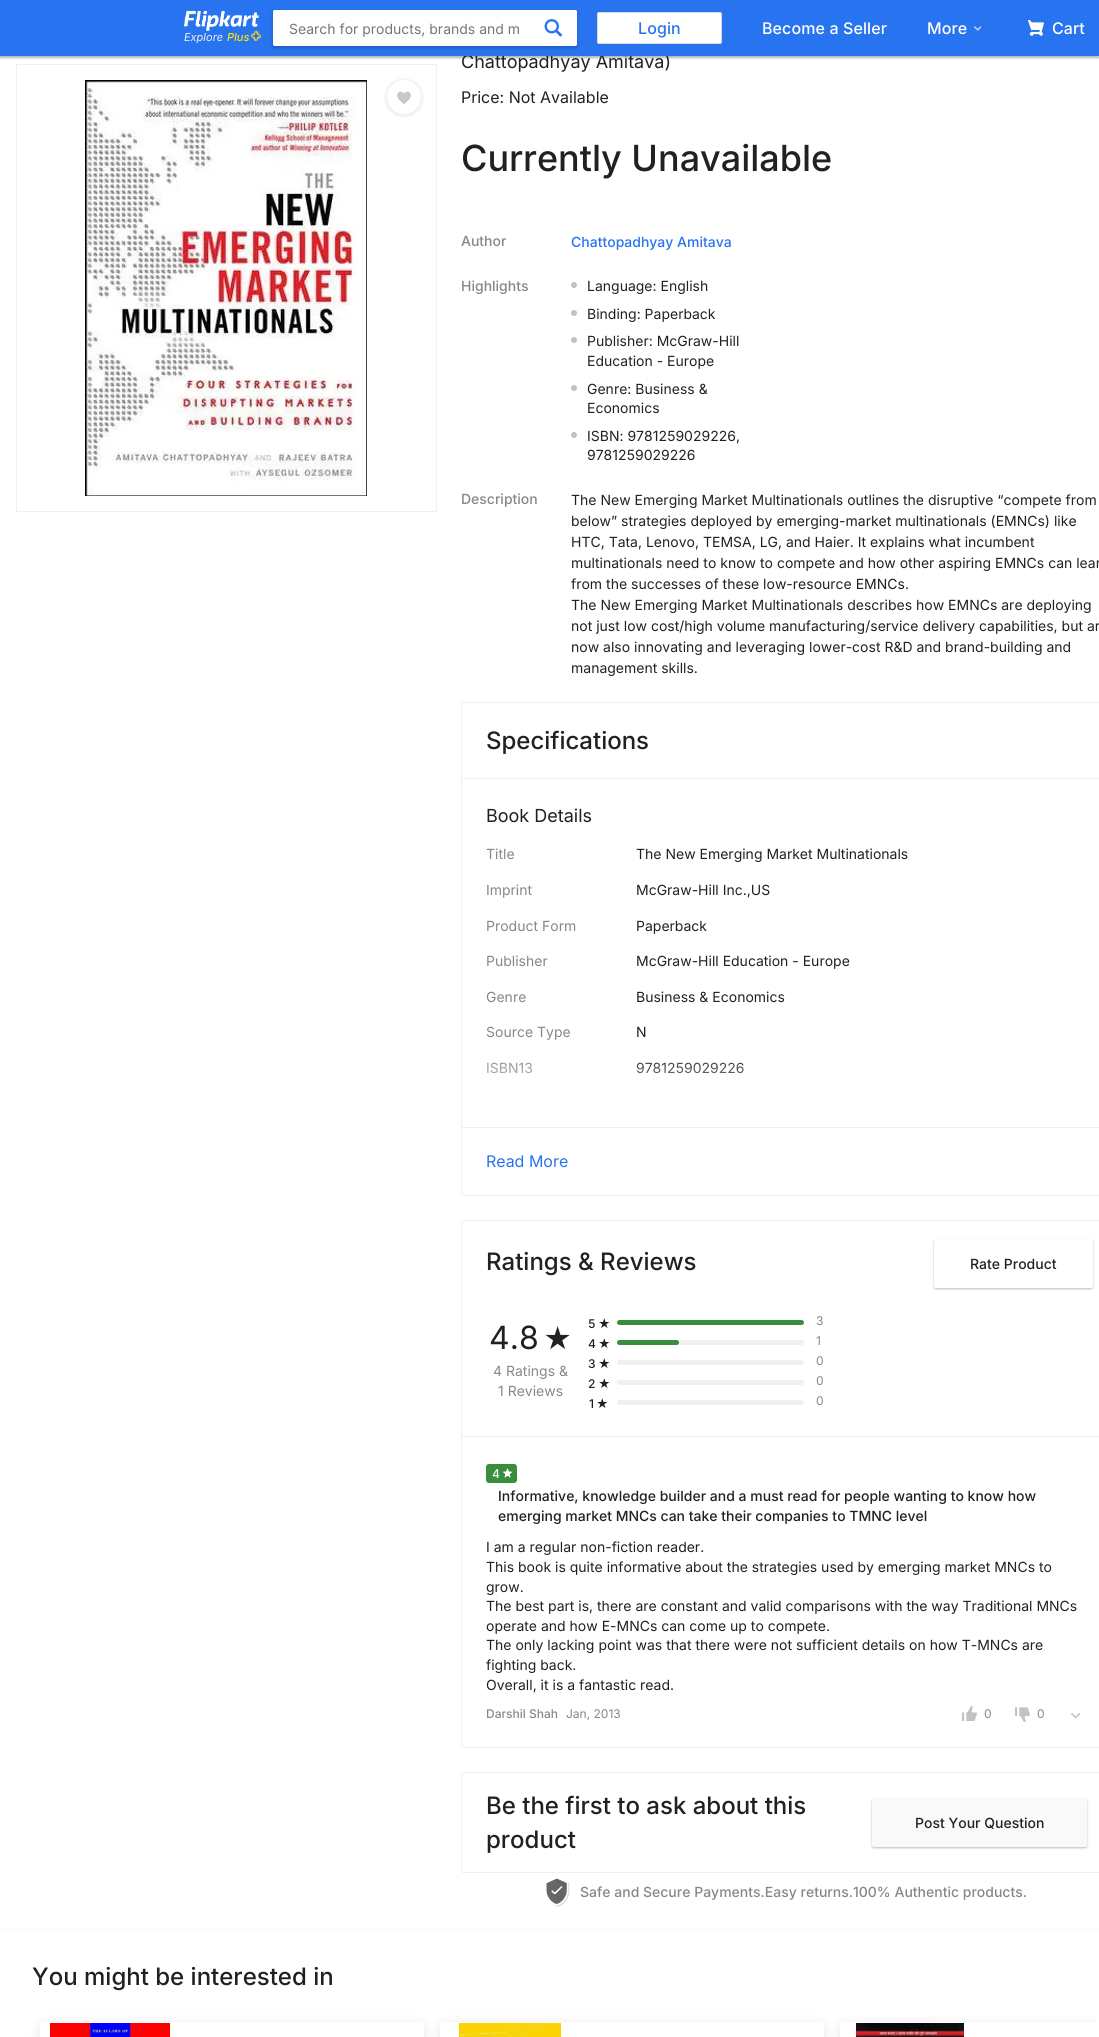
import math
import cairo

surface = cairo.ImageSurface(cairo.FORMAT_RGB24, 1099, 2037)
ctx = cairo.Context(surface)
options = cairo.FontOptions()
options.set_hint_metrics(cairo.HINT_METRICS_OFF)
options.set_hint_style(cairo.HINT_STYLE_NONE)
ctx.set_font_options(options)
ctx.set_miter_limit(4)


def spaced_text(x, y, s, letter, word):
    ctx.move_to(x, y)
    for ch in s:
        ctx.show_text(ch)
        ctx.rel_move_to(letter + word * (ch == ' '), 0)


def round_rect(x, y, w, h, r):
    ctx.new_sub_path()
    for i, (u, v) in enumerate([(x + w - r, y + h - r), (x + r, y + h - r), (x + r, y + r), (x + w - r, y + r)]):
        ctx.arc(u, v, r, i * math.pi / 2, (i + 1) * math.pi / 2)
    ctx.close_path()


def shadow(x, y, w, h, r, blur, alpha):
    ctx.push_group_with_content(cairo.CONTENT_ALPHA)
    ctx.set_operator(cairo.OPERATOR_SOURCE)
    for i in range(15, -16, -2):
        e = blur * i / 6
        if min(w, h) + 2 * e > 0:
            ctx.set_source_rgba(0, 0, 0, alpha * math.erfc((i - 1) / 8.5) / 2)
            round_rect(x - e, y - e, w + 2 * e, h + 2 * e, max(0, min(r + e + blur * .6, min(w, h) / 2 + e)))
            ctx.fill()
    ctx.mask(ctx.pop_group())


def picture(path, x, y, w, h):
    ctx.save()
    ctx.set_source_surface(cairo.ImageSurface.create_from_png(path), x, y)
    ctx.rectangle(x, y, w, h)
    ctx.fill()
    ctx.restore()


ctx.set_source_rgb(0.945, 0.953, 0.965)
ctx.paint()
ctx.set_source_rgb(1, 1, 1)
ctx.rectangle(0, 56, 1099, 1875)
ctx.fill()
ctx.set_source_rgb(0, 0, 0)
shadow(0, 55, 1099, 3, 0, 1, 0.3)
ctx.select_font_face("Inter")
ctx.set_font_size(18)
ctx.set_source_rgb(0.129, 0.129, 0.129)
ctx.move_to(461, 68)
ctx.show_text("Chattopadhyay Amitava)")
ctx.set_source_rgb(0.157, 0.455, 0.941)
ctx.rectangle(0, 0, 1099, 56)
ctx.fill()
ctx.set_source_rgb(0, 0, 0)
shadow(273, 12, 304, 36, 0, 2, 0.23)
ctx.set_source_rgb(1, 1, 1)
round_rect(273, 10, 304, 36, 2)
ctx.fill()
ctx.new_path()
ctx.move_to(275, 10)
ctx.line_to(535, 10)
ctx.line_to(535, 46)
ctx.line_to(275, 46)
ctx.curve_to(274, 46, 273, 45, 273, 44)
ctx.line_to(273, 12)
ctx.curve_to(273, 11, 274, 10, 275, 10)
ctx.close_path()
ctx.fill()
ctx.set_font_size(14)
ctx.set_source_rgb(0.459, 0.459, 0.459)
ctx.move_to(289, 34)
ctx.show_text("Search for products, brands and m")
ctx.set_source_rgb(1, 1, 1)
round_rect(535.5, 10.5, 41, 35, 1.5)
ctx.fill_preserve()
ctx.set_line_width(1)
ctx.stroke()
picture("img1.png", 544, 19, 19, 18)
round_rect(597.5, 12.5, 124, 31, 1.5)
ctx.fill_preserve()
ctx.set_source_rgb(0.859, 0.859, 0.859)
ctx.stroke()
ctx.select_font_face("Inter Medium")
ctx.set_font_size(16)
ctx.set_source_rgb(0.157, 0.455, 0.941)
spaced_text(638, 34, "Login", 0.1, 0)
ctx.set_source_rgb(1, 1, 1)
spaced_text(762, 34, "Become a Seller", 0.1, 0)
spaced_text(927, 34, "More", 0.1, 0)
picture("img2.png", 974, 26, 8, 5)
picture("img3.png", 1028, 20, 16, 16)
spaced_text(1052, 34, "Cart", 0.1, 0)
picture("img4.png", 184, 10, 75, 21)
ctx.select_font_face("Inter", cairo.FONT_SLANT_ITALIC)
ctx.set_font_size(11)
ctx.set_source_rgb(0.941, 0.941, 0.941)
ctx.move_to(184, 41)
ctx.show_text("Explore")
ctx.select_font_face("Inter Medium", cairo.FONT_SLANT_ITALIC)
ctx.set_source_rgb(1, 0.898, 0)
ctx.move_to(227, 41)
ctx.show_text("Plus")
picture("img5.png", 251, 30, 10, 11)
ctx.rectangle(16.5, 64.5, 420, 447)
ctx.set_source_rgb(0.941, 0.941, 0.941)
ctx.stroke()
picture("img6.png", 85, 80, 282, 416)
ctx.set_source_rgb(0, 0, 0)
shadow(386, 80, 36, 36, 18, 2, 0.1)
ctx.set_source_rgb(1, 1, 1)
ctx.arc(404, 97, 17.5, 0, 2 * math.pi)
ctx.fill_preserve()
ctx.set_source_rgb(0.941, 0.941, 0.941)
ctx.stroke()
picture("img7.png", 396, 91, 16, 14)
ctx.select_font_face("Inter")
ctx.set_font_size(16)
ctx.set_source_rgb(0.129, 0.129, 0.129)
ctx.move_to(461, 103)
ctx.show_text("Price: Not Available")
ctx.select_font_face("Inter Medium")
ctx.set_font_size(36)
ctx.move_to(461, 171)
ctx.show_text("Currently Unavailable")
ctx.set_font_size(14)
ctx.set_source_rgb(0.529, 0.529, 0.529)
ctx.move_to(461, 246)
ctx.show_text("Author")
ctx.set_source_rgb(0.157, 0.455, 0.941)
ctx.move_to(571, 247)
ctx.show_text("Chattopadhyay Amitava")
ctx.set_source_rgb(0.529, 0.529, 0.529)
ctx.move_to(461, 291)
ctx.show_text("Highlights")
ctx.set_source_rgb(0.761, 0.761, 0.761)
ctx.new_path()
ctx.arc(574, 285, 3, 0, 2 * math.pi)
ctx.fill()
ctx.select_font_face("Inter")
ctx.set_source_rgb(0.129, 0.129, 0.129)
ctx.move_to(587, 291)
ctx.show_text("Language: English")
ctx.set_source_rgb(0.761, 0.761, 0.761)
ctx.new_path()
ctx.arc(574, 313, 3, 0, 2 * math.pi)
ctx.fill()
ctx.set_source_rgb(0.129, 0.129, 0.129)
ctx.move_to(587, 319)
ctx.show_text("Binding: Paperback")
ctx.set_source_rgb(0.761, 0.761, 0.761)
ctx.new_path()
ctx.arc(574, 340, 3, 0, 2 * math.pi)
ctx.fill()
ctx.set_source_rgb(0.129, 0.129, 0.129)
ctx.move_to(587, 346)
ctx.show_text("Publisher: McGraw-Hill")
ctx.move_to(587, 366)
ctx.show_text("Education - Europe")
ctx.set_source_rgb(0.761, 0.761, 0.761)
ctx.new_path()
ctx.arc(574, 388, 3, 0, 2 * math.pi)
ctx.fill()
ctx.set_source_rgb(0.129, 0.129, 0.129)
ctx.move_to(587, 394)
ctx.show_text("Genre: Business &")
ctx.move_to(587, 413)
ctx.show_text("Economics")
ctx.set_source_rgb(0.761, 0.761, 0.761)
ctx.new_path()
ctx.arc(574, 435, 3, 0, 2 * math.pi)
ctx.fill()
ctx.set_source_rgb(0.129, 0.129, 0.129)
ctx.move_to(587, 441)
ctx.show_text("ISBN: 9781259029226,")
ctx.move_to(587, 460)
ctx.show_text("9781259029226")
ctx.select_font_face("Inter Medium")
ctx.set_source_rgb(0.529, 0.529, 0.529)
ctx.move_to(461, 504)
ctx.show_text("Description")
ctx.select_font_face("Inter")
ctx.set_source_rgb(0.129, 0.129, 0.129)
ctx.move_to(571, 505)
ctx.show_text("The New Emerging Market Multinationals outlines the disruptive “compete from")
ctx.move_to(571, 526)
ctx.show_text("below” strategies deployed by emerging-market multinationals (EMNCs) like")
ctx.move_to(571, 547)
ctx.show_text("HTC, Tata, Lenovo, TEMSA, LG, and Haier. It explains what incumbent")
ctx.move_to(571, 568)
ctx.show_text("multinationals need to know to compete and how other aspiring EMNCs can lear")
ctx.move_to(571, 589)
ctx.show_text("from the successes of these low-resource EMNCs.")
ctx.move_to(571, 610)
ctx.show_text("The New Emerging Market Multinationals describes how EMNCs are deploying")
ctx.move_to(571, 631)
ctx.show_text("not just low cost/high volume manufacturing/service delivery capabilities, but ar")
ctx.move_to(571, 652)
ctx.show_text("now also innovating and leveraging lower-cost R&D and brand-building and")
ctx.move_to(571, 673)
ctx.show_text("management skills.")
round_rect(461.5, 702.5, 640, 493, 1.5)
ctx.set_source_rgb(0.941, 0.941, 0.941)
ctx.stroke()
ctx.select_font_face("Inter Medium")
ctx.set_font_size(24)
ctx.set_source_rgb(0.129, 0.129, 0.129)
ctx.move_to(486, 749)
ctx.show_text("Specifications")
ctx.set_source_rgb(0.941, 0.941, 0.941)
ctx.rectangle(462, 778, 637, 1)
ctx.fill()
ctx.select_font_face("Inter")
ctx.set_font_size(18)
ctx.set_source_rgb(0.129, 0.129, 0.129)
ctx.move_to(486, 822)
ctx.show_text("Book Details")
ctx.set_font_size(14)
ctx.set_source_rgb(0.529, 0.529, 0.529)
ctx.move_to(486, 859)
ctx.show_text("Title")
ctx.set_source_rgb(0.129, 0.129, 0.129)
ctx.move_to(636, 859)
ctx.show_text("The New Emerging Market Multinationals")
ctx.set_source_rgb(0.529, 0.529, 0.529)
ctx.move_to(486, 895)
ctx.show_text("Imprint")
ctx.set_source_rgb(0.129, 0.129, 0.129)
ctx.move_to(636, 895)
ctx.show_text("McGraw-Hill Inc.,US")
ctx.set_source_rgb(0.529, 0.529, 0.529)
ctx.move_to(486, 931)
ctx.show_text("Product Form")
ctx.set_source_rgb(0.129, 0.129, 0.129)
ctx.move_to(636, 931)
ctx.show_text("Paperback")
ctx.set_source_rgb(0.529, 0.529, 0.529)
ctx.move_to(486, 966)
ctx.show_text("Publisher")
ctx.set_source_rgb(0.129, 0.129, 0.129)
ctx.move_to(636, 966)
ctx.show_text("McGraw-Hill Education - Europe")
ctx.set_source_rgb(0.529, 0.529, 0.529)
ctx.move_to(486, 1002)
ctx.show_text("Genre")
ctx.set_source_rgb(0.129, 0.129, 0.129)
ctx.move_to(636, 1002)
ctx.show_text("Business & Economics")
ctx.set_source_rgb(0.529, 0.529, 0.529)
ctx.move_to(486, 1037)
ctx.show_text("Source Type")
ctx.set_source_rgb(0.129, 0.129, 0.129)
ctx.move_to(636, 1037)
ctx.show_text("N")
ctx.set_source_rgb(0.529, 0.529, 0.529)
ctx.move_to(486, 1073)
ctx.show_text("ISBN13")
ctx.set_source_rgb(0.129, 0.129, 0.129)
ctx.move_to(636, 1073)
ctx.show_text("9781259029226")
gradient = cairo.LinearGradient(787, 1047, 787, 1127)
gradient.add_color_stop_rgba(0.05, 1, 1, 1, 0)
gradient.add_color_stop_rgba(1, 1, 1, 1, 1)
ctx.set_source(gradient)
ctx.rectangle(487, 1062, 257, 12)
ctx.fill()
ctx.set_source_rgb(0.941, 0.941, 0.941)
ctx.rectangle(462, 1127, 637, 1)
ctx.fill()
ctx.set_font_size(16)
ctx.set_source_rgb(0.157, 0.455, 0.941)
ctx.move_to(486, 1167)
ctx.show_text("Read More")
round_rect(461.5, 1220.5, 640, 527, 1.5)
ctx.set_source_rgb(0.941, 0.941, 0.941)
ctx.stroke()
ctx.select_font_face("Inter Medium")
ctx.set_font_size(24)
ctx.set_source_rgb(0.129, 0.129, 0.129)
ctx.move_to(486, 1270)
ctx.show_text("Ratings & Reviews")
ctx.set_source_rgb(0, 0, 0)
shadow(934, 1240, 159, 49, 2, 1, 0.26)
ctx.set_source_rgb(1, 1, 1)
round_rect(934, 1239, 159, 49, 2)
ctx.fill()
ctx.set_font_size(14)
ctx.set_source_rgb(0.129, 0.129, 0.129)
ctx.move_to(970, 1269)
ctx.show_text("Rate Product")
ctx.select_font_face("Inter")
ctx.set_font_size(32)
ctx.move_to(489, 1349)
ctx.show_text("4.8")
ctx.set_font_size(28)
ctx.move_to(543, 1349)
ctx.show_text("★")
ctx.set_font_size(14)
ctx.set_source_rgb(0.529, 0.529, 0.529)
ctx.move_to(493, 1376)
ctx.show_text("4 Ratings &")
ctx.move_to(498, 1396)
ctx.show_text("1 Reviews")
ctx.select_font_face("Inter Medium")
ctx.set_font_size(12)
ctx.set_source_rgb(0.129, 0.129, 0.129)
ctx.move_to(588, 1328)
ctx.show_text("5")
ctx.select_font_face("Inter")
ctx.move_to(598, 1328)
ctx.show_text("★")
ctx.select_font_face("Inter Medium")
ctx.move_to(588, 1348)
ctx.show_text("4")
ctx.select_font_face("Inter")
ctx.move_to(598, 1348)
ctx.show_text("★")
ctx.select_font_face("Inter Medium")
ctx.move_to(588, 1368)
ctx.show_text("3")
ctx.select_font_face("Inter")
ctx.move_to(598, 1368)
ctx.show_text("★")
ctx.select_font_face("Inter Medium")
ctx.move_to(588, 1388)
ctx.show_text("2")
ctx.select_font_face("Inter")
ctx.move_to(598, 1388)
ctx.show_text("★")
ctx.select_font_face("Inter Medium")
ctx.move_to(589, 1408)
ctx.show_text("1")
ctx.select_font_face("Inter")
ctx.move_to(596, 1408)
ctx.show_text("★")
ctx.set_source_rgb(0.22, 0.557, 0.235)
round_rect(617, 1320, 187, 5, 2.5)
ctx.fill()
ctx.set_source_rgb(0.941, 0.941, 0.941)
round_rect(617, 1340, 187, 5, 2.5)
ctx.fill()
ctx.set_source_rgb(0.22, 0.557, 0.235)
round_rect(617, 1340, 62, 5, 2.5)
ctx.fill()
ctx.set_source_rgb(0.941, 0.941, 0.941)
round_rect(617, 1360, 187, 5, 2.5)
ctx.fill()
round_rect(617, 1380, 187, 5, 2.5)
ctx.fill()
round_rect(617, 1400, 187, 5, 2.5)
ctx.fill()
ctx.set_source_rgb(0.529, 0.529, 0.529)
ctx.move_to(816, 1325)
ctx.show_text("3")
ctx.move_to(816, 1345)
ctx.show_text("1")
ctx.move_to(816, 1365)
ctx.show_text("0")
ctx.move_to(816, 1385)
ctx.show_text("0")
ctx.move_to(816, 1405)
ctx.show_text("0")
ctx.set_source_rgb(0.941, 0.941, 0.941)
ctx.rectangle(462, 1436, 637, 1)
ctx.fill()
ctx.set_source_rgb(0.22, 0.557, 0.235)
round_rect(486, 1464, 31, 19, 3)
ctx.fill()
ctx.select_font_face("Inter Medium")
ctx.set_source_rgb(1, 1, 1)
ctx.move_to(492, 1478)
ctx.show_text("4")
picture("img8.png", 502, 1468, 11, 10)
ctx.set_font_size(14)
ctx.set_source_rgb(0.129, 0.129, 0.129)
ctx.move_to(498, 1501)
ctx.show_text("Informative, knowledge builder and a must read for people wanting to know how")
ctx.move_to(498, 1521)
ctx.show_text("emerging market MNCs can take their companies to TMNC level")
ctx.select_font_face("Inter")
ctx.move_to(486, 1552)
ctx.show_text("I am a regular non-fiction reader.")
ctx.move_to(486, 1572)
ctx.show_text("This book is quite informative about the strategies used by emerging market MNCs to")
ctx.move_to(486, 1592)
ctx.show_text("grow.")
ctx.move_to(486, 1611)
ctx.show_text("The best part is, there are constant and valid comparisons with the way Traditional MNCs")
ctx.move_to(486, 1631)
ctx.show_text("operate and how E-MNCs can come up to compete.")
ctx.move_to(486, 1650)
ctx.show_text("The only lacking point was that there were not sufficient details on how T-MNCs are")
ctx.move_to(486, 1670)
ctx.show_text("fighting back.")
ctx.move_to(486, 1690)
ctx.show_text("Overall, it is a fantastic read.")
ctx.select_font_face("Inter Medium")
ctx.set_font_size(12)
ctx.set_source_rgb(0.529, 0.529, 0.529)
ctx.move_to(486, 1718)
ctx.show_text("Darshil Shah")
ctx.select_font_face("Inter")
ctx.move_to(566, 1718)
ctx.show_text("Jan, 2013")
picture("img9.png", 962, 1706, 15, 15)
ctx.move_to(984, 1718)
ctx.show_text("0")
picture("img10.png", 1015, 1707, 15, 15)
ctx.move_to(1037, 1718)
ctx.show_text("0")
picture("img11.png", 1071, 1713, 10, 6)
ctx.set_source_rgb(0.941, 0.941, 0.941)
ctx.rectangle(462, 1772, 637, 1)
ctx.fill()
ctx.rectangle(461, 1773, 1, 99)
ctx.fill()
ctx.rectangle(462, 1872, 637, 1)
ctx.fill()
ctx.select_font_face("Inter Medium")
ctx.set_font_size(24)
ctx.set_source_rgb(0.129, 0.129, 0.129)
ctx.move_to(486, 1814)
ctx.show_text("Be the first to ask about this")
ctx.move_to(486, 1848)
ctx.show_text("product")
ctx.set_source_rgb(0, 0, 0)
shadow(872, 1799, 215, 49, 2, 1, 0.26)
ctx.set_source_rgb(0.976, 0.976, 0.976)
round_rect(872, 1798, 215, 49, 2)
ctx.fill()
ctx.set_font_size(14)
ctx.set_source_rgb(0.129, 0.129, 0.129)
ctx.move_to(915, 1828)
ctx.show_text("Post Your Question")
picture("img12.png", 546, 1877, 24, 30)
ctx.set_source_rgb(0.529, 0.529, 0.529)
ctx.move_to(580, 1897)
ctx.show_text("Safe and Secure Payments.Easy returns.100% Authentic products.")
ctx.set_source_rgb(0, 0, 0)
shadow(0, 1932, 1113, 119, 2, 4, 0.06)
ctx.set_source_rgb(1, 1, 1)
round_rect(0, 1931, 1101, 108, 2)
ctx.fill()
ctx.set_font_size(24)
ctx.set_source_rgb(0.129, 0.129, 0.129)
ctx.move_to(32, 1985)
ctx.show_text("You might be interested in")
ctx.save()
ctx.set_fill_rule(cairo.FILL_RULE_EVEN_ODD)
ctx.new_path()
ctx.move_to(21, 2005)
ctx.line_to(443, 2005)
ctx.line_to(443, 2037)
ctx.line_to(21, 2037)
ctx.close_path()
ctx.move_to(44, 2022)
ctx.line_to(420, 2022)
ctx.curve_to(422, 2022, 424, 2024, 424, 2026)
ctx.line_to(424, 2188)
ctx.curve_to(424, 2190, 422, 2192, 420, 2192)
ctx.line_to(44, 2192)
ctx.curve_to(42, 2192, 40, 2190, 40, 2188)
ctx.line_to(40, 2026)
ctx.curve_to(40, 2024, 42, 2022, 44, 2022)
ctx.close_path()
ctx.clip()
ctx.set_source_rgb(0, 0, 0)
shadow(40, 2024, 384, 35, 4, 6, 0.1)
ctx.restore()
picture("img13.png", 50, 2023, 120, 14)
ctx.save()
ctx.set_fill_rule(cairo.FILL_RULE_EVEN_ODD)
ctx.new_path()
ctx.move_to(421, 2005)
ctx.line_to(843, 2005)
ctx.line_to(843, 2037)
ctx.line_to(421, 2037)
ctx.close_path()
ctx.move_to(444, 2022)
ctx.line_to(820, 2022)
ctx.curve_to(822, 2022, 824, 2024, 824, 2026)
ctx.line_to(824, 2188)
ctx.curve_to(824, 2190, 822, 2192, 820, 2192)
ctx.line_to(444, 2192)
ctx.curve_to(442, 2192, 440, 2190, 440, 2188)
ctx.line_to(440, 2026)
ctx.curve_to(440, 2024, 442, 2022, 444, 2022)
ctx.close_path()
ctx.clip()
ctx.set_source_rgb(0, 0, 0)
shadow(440, 2024, 384, 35, 4, 6, 0.1)
ctx.restore()
picture("img14.png", 459, 2023, 102, 14)
ctx.save()
ctx.rectangle(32, 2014, 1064, 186)
ctx.clip()
ctx.set_fill_rule(cairo.FILL_RULE_EVEN_ODD)
ctx.new_path()
ctx.move_to(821, 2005)
ctx.line_to(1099, 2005)
ctx.line_to(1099, 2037)
ctx.line_to(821, 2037)
ctx.close_path()
ctx.move_to(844, 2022)
ctx.line_to(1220, 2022)
ctx.curve_to(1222, 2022, 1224, 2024, 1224, 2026)
ctx.line_to(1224, 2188)
ctx.curve_to(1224, 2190, 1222, 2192, 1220, 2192)
ctx.line_to(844, 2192)
ctx.curve_to(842, 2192, 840, 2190, 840, 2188)
ctx.line_to(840, 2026)
ctx.curve_to(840, 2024, 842, 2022, 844, 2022)
ctx.close_path()
ctx.clip()
ctx.set_source_rgb(0, 0, 0)
shadow(840, 2024, 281, 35, 4, 6, 0.1)
ctx.restore()
picture("img15.png", 856, 2023, 108, 14)
surface.write_to_png("page.png")
